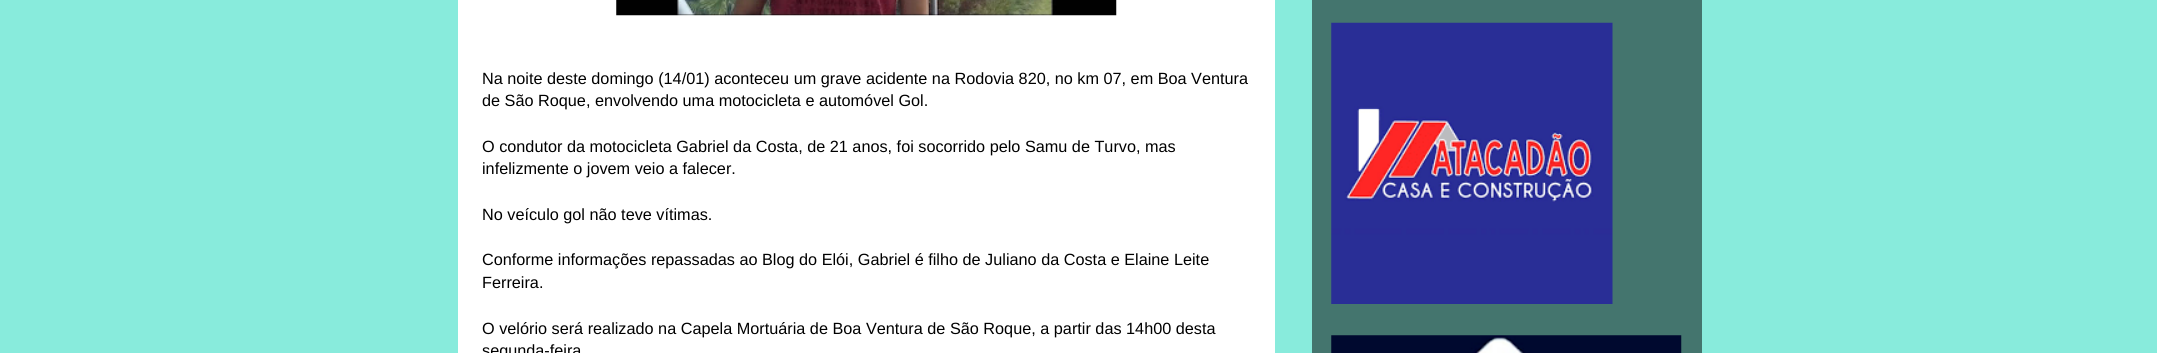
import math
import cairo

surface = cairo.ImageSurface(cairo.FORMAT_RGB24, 2157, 353)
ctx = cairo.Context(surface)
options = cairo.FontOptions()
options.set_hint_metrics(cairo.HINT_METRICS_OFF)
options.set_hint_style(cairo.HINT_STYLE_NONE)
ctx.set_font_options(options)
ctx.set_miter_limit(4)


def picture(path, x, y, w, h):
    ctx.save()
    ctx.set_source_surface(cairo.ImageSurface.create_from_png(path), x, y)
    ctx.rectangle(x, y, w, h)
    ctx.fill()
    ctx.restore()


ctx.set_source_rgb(0.533, 0.918, 0.863)
ctx.paint()
ctx.set_source_rgb(1, 1, 1)
ctx.rectangle(458, 0, 817, 353)
ctx.fill()
picture("img1.png", 616, 0, 501, 16)
ctx.select_font_face("Liberation Sans")
ctx.set_font_size(16.25)
ctx.set_source_rgb(0, 0, 0)
ctx.move_to(482, 84)
ctx.show_text("Na noite deste domingo (14/01) aconteceu um grave acidente na Rodovia 820, no km 07, em Boa Ventura")
ctx.move_to(482, 106)
ctx.show_text("de São Roque, envolvendo uma motocicleta e automóvel Gol.")
ctx.move_to(482, 152)
ctx.show_text("O condutor da motocicleta Gabriel da Costa, de 21 anos, foi socorrido pelo Samu de Turvo, mas")
ctx.move_to(482, 174)
ctx.show_text("infelizmente o jovem veio a falecer.")
ctx.move_to(482, 220)
ctx.show_text("No veículo gol não teve vítimas.")
ctx.move_to(482, 265)
ctx.show_text("Conforme informações repassadas ao Blog do Elói, Gabriel é filho de Juliano da Costa e Elaine Leite")
ctx.move_to(482, 288)
ctx.show_text("Ferreira.")
ctx.move_to(482, 334)
ctx.show_text("O velório será realizado na Capela Mortuária de Boa Ventura de São Roque, a partir das 14h00 desta")
ctx.move_to(482, 356)
ctx.show_text("segunda-feira")
ctx.set_source_rgb(0.267, 0.459, 0.431)
ctx.rectangle(1312, 0, 390, 353)
ctx.fill()
picture("img2.png", 1331, 22, 282, 282)
picture("img3.png", 1331, 335, 351, 18)
surface.write_to_png("page.png")
